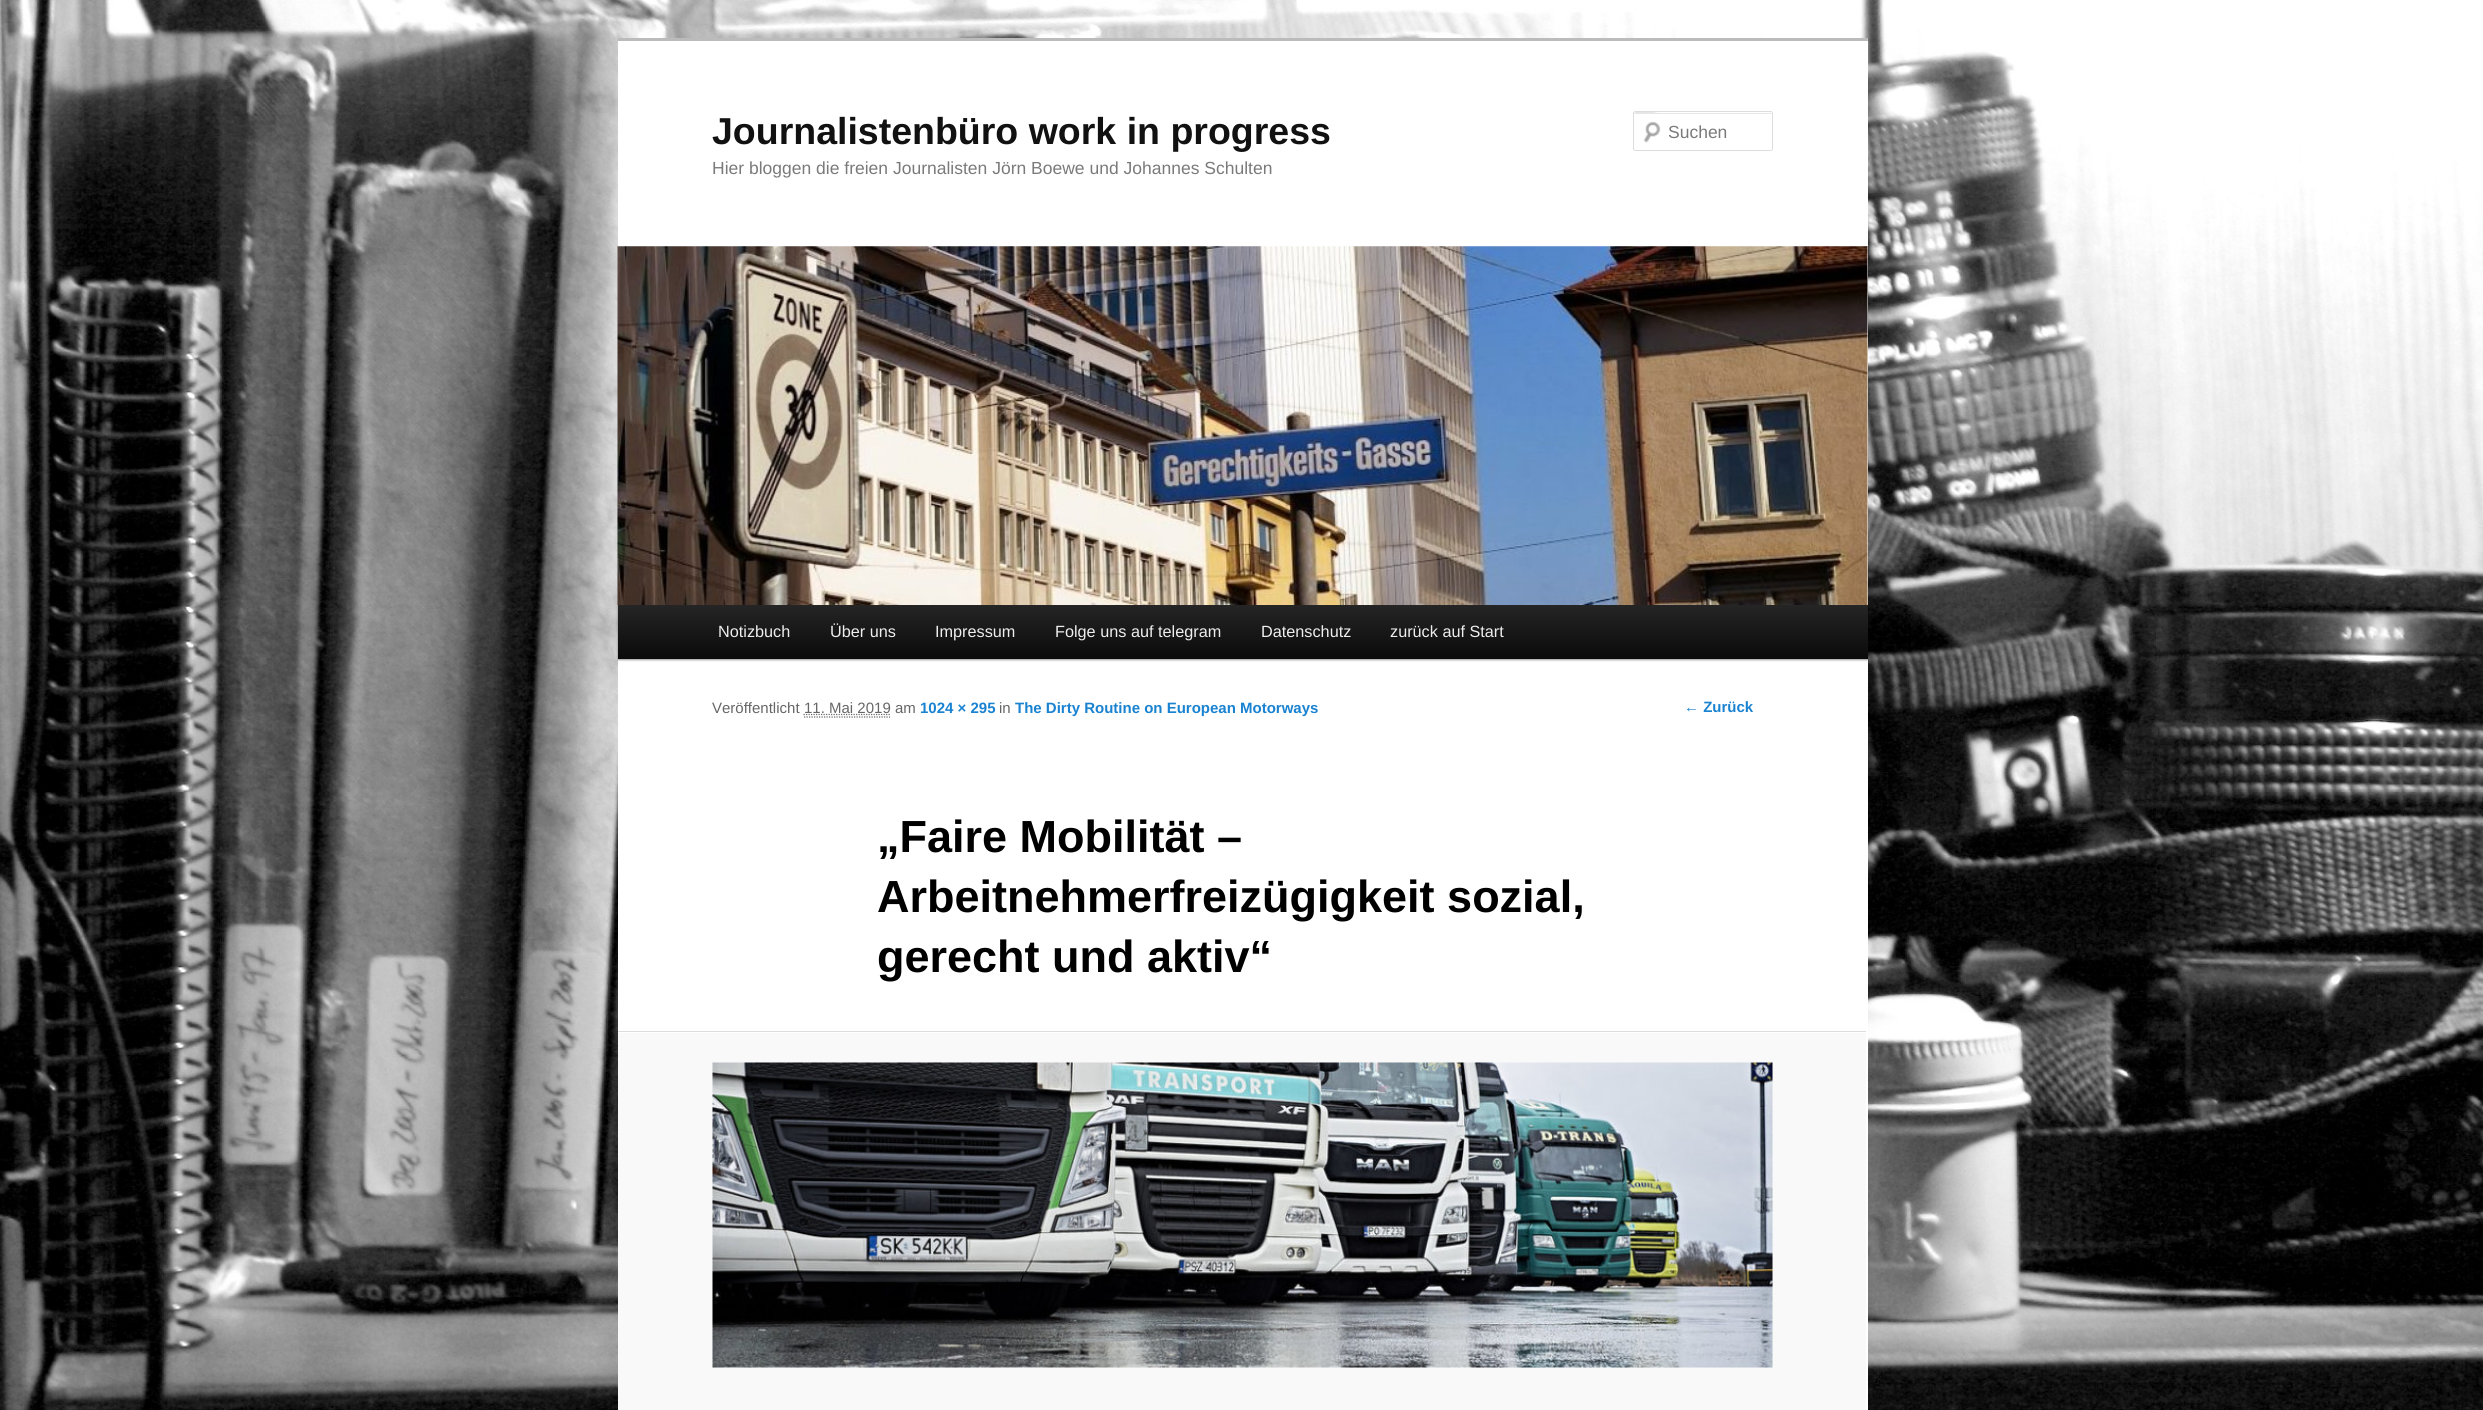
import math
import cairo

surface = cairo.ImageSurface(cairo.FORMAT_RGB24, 2483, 1410)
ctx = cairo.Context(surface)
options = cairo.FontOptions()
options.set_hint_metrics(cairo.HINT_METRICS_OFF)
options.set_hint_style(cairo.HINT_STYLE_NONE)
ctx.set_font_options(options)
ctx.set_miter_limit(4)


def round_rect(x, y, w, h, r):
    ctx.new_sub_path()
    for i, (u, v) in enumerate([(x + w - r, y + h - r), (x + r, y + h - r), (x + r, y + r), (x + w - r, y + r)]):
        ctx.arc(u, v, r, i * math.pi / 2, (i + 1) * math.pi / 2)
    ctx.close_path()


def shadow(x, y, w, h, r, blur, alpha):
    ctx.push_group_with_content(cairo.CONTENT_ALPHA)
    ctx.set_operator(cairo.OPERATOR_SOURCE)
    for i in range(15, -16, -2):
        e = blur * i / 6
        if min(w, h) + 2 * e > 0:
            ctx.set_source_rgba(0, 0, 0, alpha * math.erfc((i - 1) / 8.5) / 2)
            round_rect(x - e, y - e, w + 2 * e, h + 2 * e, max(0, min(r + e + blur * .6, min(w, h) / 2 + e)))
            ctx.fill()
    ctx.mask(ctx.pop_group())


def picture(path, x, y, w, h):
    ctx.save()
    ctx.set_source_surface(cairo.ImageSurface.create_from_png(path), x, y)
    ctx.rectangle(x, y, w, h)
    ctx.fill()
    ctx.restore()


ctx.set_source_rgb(1, 1, 1)
ctx.paint()
picture("img1.png", 0, 0, 2483, 1410)
ctx.set_source_rgb(1, 1, 1)
ctx.rectangle(618, 41, 1250, 1369)
ctx.fill()
ctx.set_source_rgb(0.733, 0.733, 0.733)
ctx.rectangle(618, 38, 1250, 3)
ctx.fill()
ctx.select_font_face("Liberation Sans", cairo.FONT_SLANT_NORMAL, cairo.FONT_WEIGHT_BOLD)
ctx.set_font_size(37.5)
ctx.set_source_rgb(0.067, 0.067, 0.067)
ctx.move_to(712, 144)
ctx.show_text("Journalistenbüro work in progress")
ctx.select_font_face("Liberation Sans")
ctx.set_font_size(17.5)
ctx.set_source_rgb(0.478, 0.478, 0.478)
ctx.move_to(712, 174)
ctx.show_text("Hier bloggen die freien Journalisten Jörn Boewe und Johannes Schulten")
picture("img2.png", 1643, 121, 18, 22)
ctx.set_source_rgb(0.902, 0.902, 0.902)
ctx.new_path()
ctx.move_to(1635, 114)
ctx.line_to(1770, 114)
ctx.curve_to(1771, 114, 1771, 114, 1771, 115)
ctx.line_to(1771, 113)
ctx.line_to(1658, 113)
ctx.curve_to(1657, 113, 1634, 107, 1634, 115)
ctx.curve_to(1634, 114, 1634, 114, 1635, 114)
ctx.close_path()
ctx.fill()
round_rect(1633.5, 111.5, 139, 39, 2)
ctx.set_source_rgb(0.867, 0.867, 0.867)
ctx.set_line_width(1)
ctx.stroke()
ctx.set_source_rgb(0.478, 0.478, 0.478)
ctx.move_to(1668, 138)
ctx.show_text("Suchen")
ctx.set_source_rgb(0, 0, 0)
shadow(618, 606, 1250, 54, 0, 1, 0.4)
picture("img3.png", 617, 246, 1251, 359)
gradient = cairo.LinearGradient(1243, 605, 1243, 659)
gradient.add_color_stop_rgba(0, 0.145, 0.145, 0.145, 1)
gradient.add_color_stop_rgba(1, 0.039, 0.039, 0.039, 1)
ctx.set_source(gradient)
ctx.rectangle(618, 605, 1250, 54)
ctx.fill()
ctx.set_font_size(16.25)
ctx.set_source_rgb(0.933, 0.933, 0.933)
ctx.move_to(718, 637)
ctx.show_text("Notizbuch")
ctx.move_to(830, 637)
ctx.show_text("Über uns")
ctx.move_to(935, 637)
ctx.show_text("Impressum")
ctx.move_to(1055, 637)
ctx.show_text("Folge uns auf telegram")
ctx.move_to(1261, 637)
ctx.show_text("Datenschutz")
ctx.move_to(1390, 637)
ctx.show_text("zurück auf Start")
ctx.set_font_size(15)
ctx.set_source_rgb(0.4, 0.4, 0.4)
ctx.move_to(712, 713)
ctx.show_text("Veröffentlicht")
ctx.new_path()
ctx.move_to(803.5, 714.5)
ctx.line_to(890.5, 714.5)
ctx.set_line_width(1.2)
ctx.set_dash([1.25, 1.25])
ctx.stroke()
ctx.move_to(804, 713)
ctx.show_text("11. Mai 2019 am")
ctx.new_path()
ctx.move_to(804, 717)
ctx.line_to(890, 717)
ctx.stroke()
ctx.select_font_face("Liberation Sans", cairo.FONT_SLANT_NORMAL, cairo.FONT_WEIGHT_BOLD)
ctx.set_source_rgb(0.098, 0.51, 0.82)
ctx.move_to(920, 713)
ctx.show_text("1024 × 295")
ctx.select_font_face("Liberation Sans")
ctx.set_source_rgb(0.4, 0.4, 0.4)
ctx.move_to(999, 713)
ctx.show_text("in")
ctx.select_font_face("Liberation Sans", cairo.FONT_SLANT_NORMAL, cairo.FONT_WEIGHT_BOLD)
ctx.set_source_rgb(0.098, 0.51, 0.82)
ctx.move_to(1015, 713)
ctx.show_text("The Dirty Routine on European Motorways")
ctx.set_font_size(45)
ctx.set_source_rgb(0, 0, 0)
ctx.move_to(877, 852)
ctx.show_text("„Faire Mobilität –")
ctx.move_to(877, 912)
ctx.show_text("Arbeitnehmerfreizügigkeit sozial,")
ctx.move_to(877, 972)
ctx.show_text("gerecht und aktiv“")
ctx.set_source_rgb(0.976, 0.976, 0.976)
ctx.rectangle(618, 1033, 1248, 377)
ctx.fill()
ctx.set_source_rgb(0.867, 0.867, 0.867)
ctx.rectangle(618, 1031, 1248, 1)
ctx.fill()
picture("img4.png", 712, 1062, 1061, 306)
ctx.set_font_size(15)
ctx.set_source_rgb(0.098, 0.51, 0.82)
ctx.move_to(1684, 712)
ctx.show_text("← Zurück")
surface.write_to_png("page.png")
